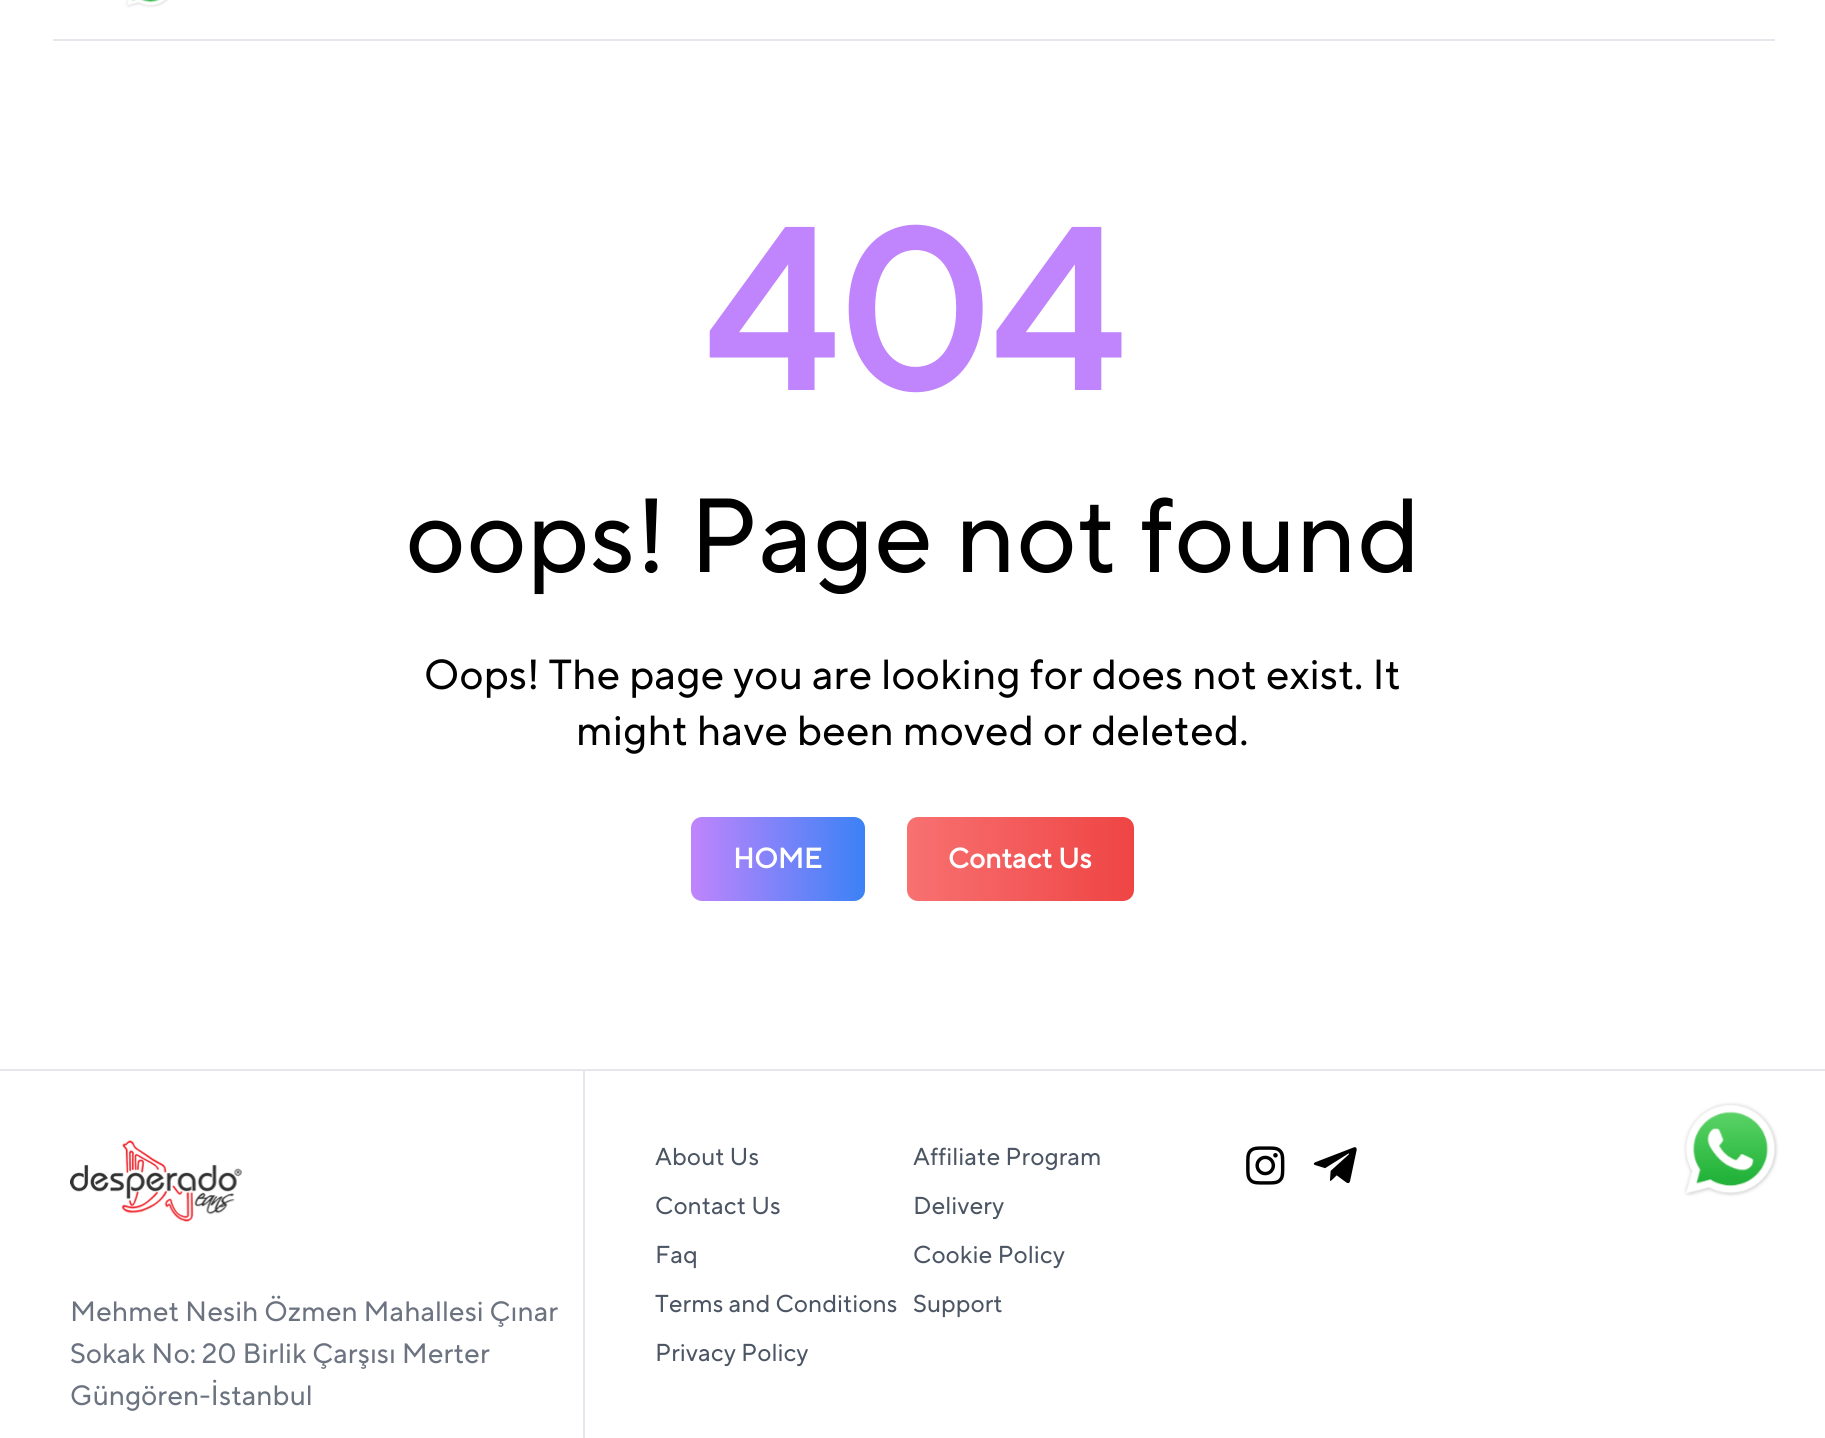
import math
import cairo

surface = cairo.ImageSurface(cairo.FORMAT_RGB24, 1825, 1438)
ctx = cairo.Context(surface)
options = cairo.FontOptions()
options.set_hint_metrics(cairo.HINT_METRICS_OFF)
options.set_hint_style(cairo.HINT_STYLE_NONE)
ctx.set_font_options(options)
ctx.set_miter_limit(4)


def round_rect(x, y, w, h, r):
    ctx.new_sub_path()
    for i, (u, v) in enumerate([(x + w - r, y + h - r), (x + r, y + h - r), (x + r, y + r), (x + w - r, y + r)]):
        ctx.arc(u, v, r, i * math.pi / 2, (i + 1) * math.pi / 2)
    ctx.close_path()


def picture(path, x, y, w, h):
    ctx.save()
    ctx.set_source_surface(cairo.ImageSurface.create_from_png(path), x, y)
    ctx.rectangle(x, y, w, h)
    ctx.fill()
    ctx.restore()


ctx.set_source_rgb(1, 1, 1)
ctx.paint()
ctx.set_source_rgb(0.898, 0.906, 0.922)
ctx.rectangle(53, 39, 1722, 2)
ctx.fill()
picture("img1.png", 125, 0, 43, 8)
ctx.select_font_face("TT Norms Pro", cairo.FONT_SLANT_NORMAL, cairo.FONT_WEIGHT_BOLD)
ctx.set_font_size(224)
ctx.set_source_rgb(0.753, 0.518, 0.988)
ctx.move_to(703, 390)
ctx.show_text("404")
ctx.select_font_face("TT Norms Pro")
ctx.set_font_size(105)
ctx.set_source_rgb(0, 0, 0)
ctx.move_to(405, 572)
ctx.show_text("oops! Page not found")
ctx.set_font_size(42)
ctx.move_to(424, 689)
ctx.show_text("Oops! The page you are looking for does not exist. It")
ctx.move_to(576, 745)
ctx.show_text("might have been moved or deleted.")
gradient = cairo.LinearGradient(691, 859, 865, 859)
gradient.add_color_stop_rgba(0, 0.753, 0.518, 0.988, 1)
gradient.add_color_stop_rgba(1, 0.231, 0.51, 0.965, 1)
ctx.set_source(gradient)
round_rect(691, 817, 174, 84, 11)
ctx.fill()
ctx.select_font_face("TT Norms Pro", cairo.FONT_SLANT_NORMAL, cairo.FONT_WEIGHT_BOLD)
ctx.set_font_size(28)
ctx.set_source_rgb(1, 1, 1)
ctx.move_to(733, 868)
ctx.show_text("HOME")
gradient = cairo.LinearGradient(907, 859, 1134, 859)
gradient.add_color_stop_rgba(0, 0.973, 0.443, 0.443, 1)
gradient.add_color_stop_rgba(1, 0.937, 0.267, 0.267, 1)
ctx.set_source(gradient)
round_rect(907, 817, 227, 84, 11)
ctx.fill()
ctx.set_source_rgb(1, 1, 1)
ctx.move_to(948, 868)
ctx.show_text("Contact Us")
ctx.set_source_rgb(0.898, 0.906, 0.922)
ctx.rectangle(0, 1069, 1825, 2)
ctx.fill()
ctx.rectangle(583, 1071, 2, 367)
ctx.fill()
picture("img2.png", 70, 1140, 172, 82)
ctx.select_font_face("TT Norms Pro")
ctx.set_source_rgb(0.42, 0.447, 0.502)
ctx.move_to(70, 1321)
ctx.show_text("Mehmet Nesih Özmen Mahallesi Çınar")
ctx.move_to(70, 1363)
ctx.show_text("Sokak No: 20 Birlik Çarşısı Merter")
ctx.move_to(70, 1405)
ctx.show_text("Güngören-İstanbul")
ctx.set_font_size(24.5)
ctx.set_source_rgb(0.294, 0.333, 0.388)
ctx.move_to(655, 1165)
ctx.show_text("About Us")
ctx.move_to(913, 1165)
ctx.show_text("Affiliate Program")
ctx.move_to(655, 1214)
ctx.show_text("Contact Us")
ctx.move_to(913, 1214)
ctx.show_text("Delivery")
ctx.move_to(655, 1263)
ctx.show_text("Faq")
ctx.move_to(913, 1263)
ctx.show_text("Cookie Policy")
ctx.move_to(655, 1312)
ctx.show_text("Terms and Conditions")
ctx.move_to(913, 1312)
ctx.show_text("Support")
ctx.move_to(655, 1361)
ctx.show_text("Privacy Policy")
picture("img3.png", 1246, 1146, 39, 39)
picture("img4.png", 1313, 1147, 44, 37)
picture("img5.png", 1683, 1102, 96, 95)
surface.write_to_png("page.png")
